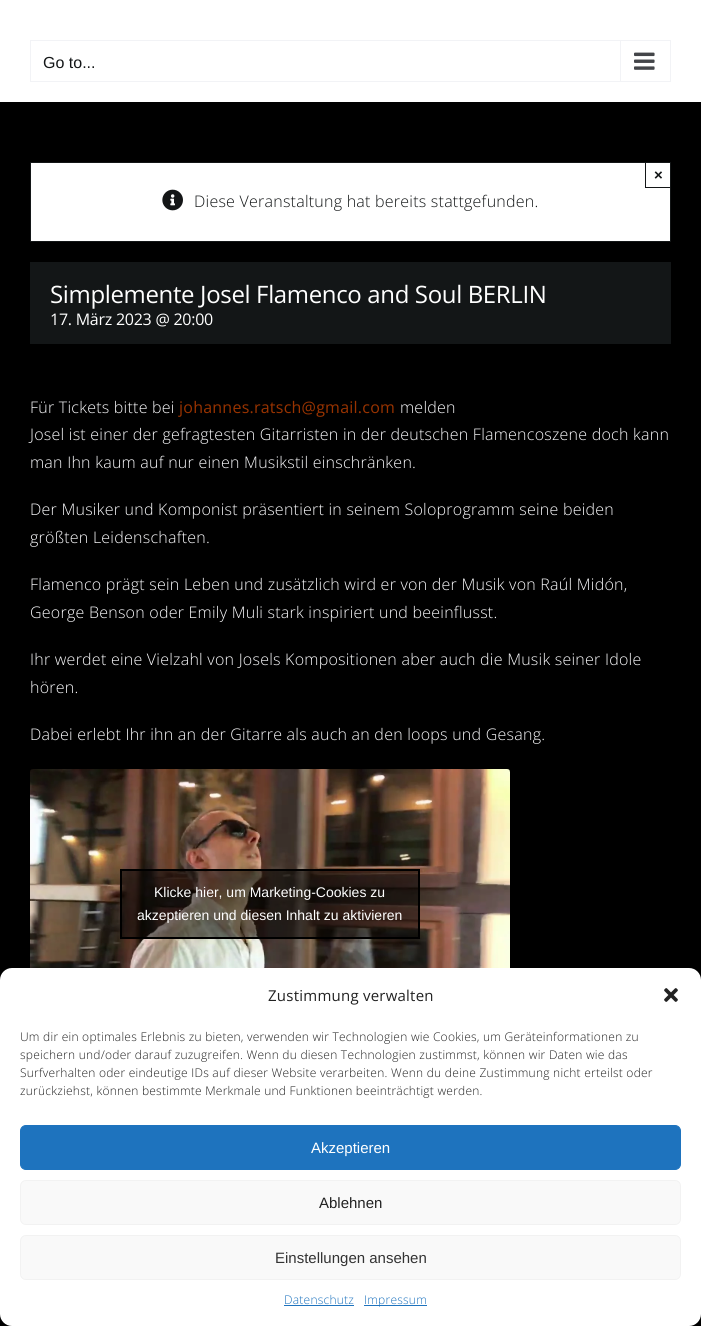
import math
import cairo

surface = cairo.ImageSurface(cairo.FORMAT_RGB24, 701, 1326)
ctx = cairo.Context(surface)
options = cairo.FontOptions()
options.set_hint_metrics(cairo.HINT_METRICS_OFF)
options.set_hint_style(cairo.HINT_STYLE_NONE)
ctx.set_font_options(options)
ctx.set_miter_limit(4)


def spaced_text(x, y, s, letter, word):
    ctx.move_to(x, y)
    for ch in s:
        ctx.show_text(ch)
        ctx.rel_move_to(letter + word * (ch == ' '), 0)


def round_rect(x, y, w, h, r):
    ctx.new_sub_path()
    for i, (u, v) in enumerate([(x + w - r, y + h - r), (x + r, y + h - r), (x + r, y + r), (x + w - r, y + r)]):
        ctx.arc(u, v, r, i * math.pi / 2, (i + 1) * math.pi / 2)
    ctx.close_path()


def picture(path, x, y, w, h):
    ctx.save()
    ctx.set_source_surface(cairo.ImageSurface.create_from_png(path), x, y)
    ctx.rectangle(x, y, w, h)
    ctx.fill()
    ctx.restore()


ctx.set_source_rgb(0, 0, 0)
ctx.paint()
ctx.set_source_rgb(1, 1, 1)
ctx.rectangle(0, 0, 701, 102)
ctx.fill()
ctx.rectangle(30.5, 40.5, 640, 41)
ctx.set_source_rgb(0.949, 0.953, 0.961)
ctx.set_line_width(1)
ctx.stroke()
ctx.select_font_face("Liberation Sans")
ctx.set_font_size(16)
ctx.set_source_rgb(0.078, 0.086, 0.09)
ctx.move_to(43, 68)
ctx.show_text("Go to...")
ctx.set_source_rgb(0.949, 0.953, 0.961)
ctx.rectangle(620, 41, 1, 40)
ctx.fill()
picture("img1.png", 634, 52, 21, 18)
ctx.set_source_rgb(1, 1, 1)
ctx.rectangle(30.5, 162.5, 640, 79)
ctx.fill_preserve()
ctx.set_source_rgb(0.078, 0.086, 0.09)
ctx.stroke()
ctx.rectangle(645, 187, 26, 1)
ctx.fill()
ctx.rectangle(645, 162, 1, 26)
ctx.fill()
ctx.select_font_face("Liberation Sans", cairo.FONT_SLANT_NORMAL, cairo.FONT_WEIGHT_BOLD)
ctx.set_font_size(15)
ctx.move_to(654, 180)
ctx.show_text("×")
picture("img2.png", 162, 189, 21, 22)
ctx.select_font_face("Open Sans Light")
ctx.set_font_size(16)
spaced_text(194, 207, "Diese Veranstaltung hat bereits stattgefunden.", 0.24, 0)
ctx.rectangle(30, 262, 641, 82)
ctx.fill()
ctx.select_font_face("Open Sans")
ctx.set_font_size(24)
ctx.set_source_rgb(1, 1, 1)
spaced_text(50, 303, "Simplemente Josel Flamenco and Soul BERLIN", -0.35, 0)
ctx.set_font_size(16)
spaced_text(50, 325, "17. März 2023 @ 20:00", -0.25, 0)
ctx.select_font_face("Open Sans Light")
ctx.set_source_rgb(0.976, 0.976, 0.984)
spaced_text(30, 413, "Für Tickets bitte bei", 0.24, 0)
ctx.select_font_face("Open Sans")
ctx.set_source_rgb(0.6, 0.2, 0)
spaced_text(179, 413, "johannes.ratsch@gmail.com", 0.24, 0)
ctx.select_font_face("Open Sans Light")
ctx.set_source_rgb(0.976, 0.976, 0.984)
spaced_text(400, 413, "melden", 0.24, 0)
spaced_text(30, 440, "Josel ist einer der gefragtesten Gitarristen in der deutschen Flamencoszene doch kann", 0.24, 0)
spaced_text(30, 468, "man Ihn kaum auf nur einen Musikstil einschränken.", 0.24, 0)
spaced_text(30, 515, "Der Musiker und Komponist präsentiert in seinem Soloprogramm seine beiden", 0.24, 0)
spaced_text(30, 543, "größten Leidenschaften.", 0.24, 0)
spaced_text(30, 590, "Flamenco prägt sein Leben und zusätzlich wird er von der Musik von Raúl Midón,", 0.24, 0)
spaced_text(30, 618, "George Benson oder Emily Muli stark inspiriert und beeinflusst.", 0.24, 0)
spaced_text(30, 665, "Ihr werdet eine Vielzahl von Josels Kompositionen aber auch die Musik seiner Idole", 0.24, 0)
spaced_text(30, 693, "hören.", 0.24, 0)
spaced_text(30, 740, "Dabei erlebt Ihr ihn an der Gitarre als auch an den loops und Gesang.", 0.24, 0)
picture("img3.png", 30, 769, 480, 199)
ctx.set_source_rgba(0, 0, 0, 0.5)
ctx.rectangle(121, 870, 298, 68)
ctx.fill_preserve()
ctx.set_source_rgb(0, 0, 0)
ctx.set_line_width(2)
ctx.stroke()
ctx.select_font_face("Liberation Sans")
ctx.set_font_size(14)
ctx.set_source_rgb(1, 1, 1)
ctx.move_to(154, 897)
ctx.show_text("Klicke hier, um Marketing-Cookies zu")
ctx.move_to(137, 920)
ctx.show_text("akzeptieren und diesen Inhalt zu aktivieren")
round_rect(0, 968, 701, 358, 12)
ctx.fill()
ctx.select_font_face("Open Sans")
ctx.set_font_size(15)
ctx.set_source_rgb(0.133, 0.133, 0.133)
spaced_text(268, 1001, "Zustimmung verwalten", 0.24, 0)
picture("img4.png", 664, 988, 14, 14)
ctx.select_font_face("Open Sans Light")
ctx.set_font_size(12)
spaced_text(20, 1041, "Um dir ein optimales Erlebnis zu bieten, verwenden wir Technologien wie Cookies, um Geräteinformationen zu", 0.24, 0)
spaced_text(20, 1059, "speichern und/oder darauf zuzugreifen. Wenn du diesen Technologien zustimmst, können wir Daten wie das", 0.24, 0)
spaced_text(20, 1077, "Surfverhalten oder eindeutige IDs auf dieser Website verarbeiten. Wenn du deine Zustimmung nicht erteilst oder", 0.24, 0)
spaced_text(20, 1095, "zurückziehst, können bestimmte Merkmale und Funktionen beeinträchtigt werden.", 0.24, 0)
ctx.set_source_rgb(0.118, 0.451, 0.745)
round_rect(20.5, 1125.5, 660, 44, 5.5)
ctx.fill_preserve()
ctx.set_line_width(1)
ctx.stroke()
ctx.select_font_face("Liberation Sans")
ctx.set_font_size(15)
ctx.set_source_rgb(1, 1, 1)
ctx.move_to(311, 1153)
ctx.show_text("Akzeptieren")
ctx.set_source_rgb(0.976, 0.976, 0.976)
round_rect(20.5, 1180.5, 660, 44, 5.5)
ctx.fill_preserve()
ctx.set_source_rgb(0.949, 0.949, 0.949)
ctx.stroke()
ctx.set_source_rgb(0.133, 0.133, 0.133)
ctx.move_to(319, 1208)
ctx.show_text("Ablehnen")
ctx.set_source_rgb(0.976, 0.976, 0.976)
round_rect(20.5, 1235.5, 660, 44, 5.5)
ctx.fill_preserve()
ctx.set_source_rgb(0.949, 0.949, 0.949)
ctx.stroke()
ctx.set_source_rgb(0.2, 0.2, 0.2)
ctx.move_to(275, 1263)
ctx.show_text("Einstellungen ansehen")
ctx.select_font_face("Open Sans Light")
ctx.set_font_size(12)
ctx.set_source_rgb(0.118, 0.451, 0.745)
spaced_text(284, 1304, "Datenschutz", 0.24, 0)
ctx.rectangle(284, 1305, 70, 1)
ctx.fill()
ctx.rectangle(364, 1305, 63, 1)
ctx.fill()
spaced_text(364, 1304, "Impressum", 0.24, 0)
surface.write_to_png("page.png")
